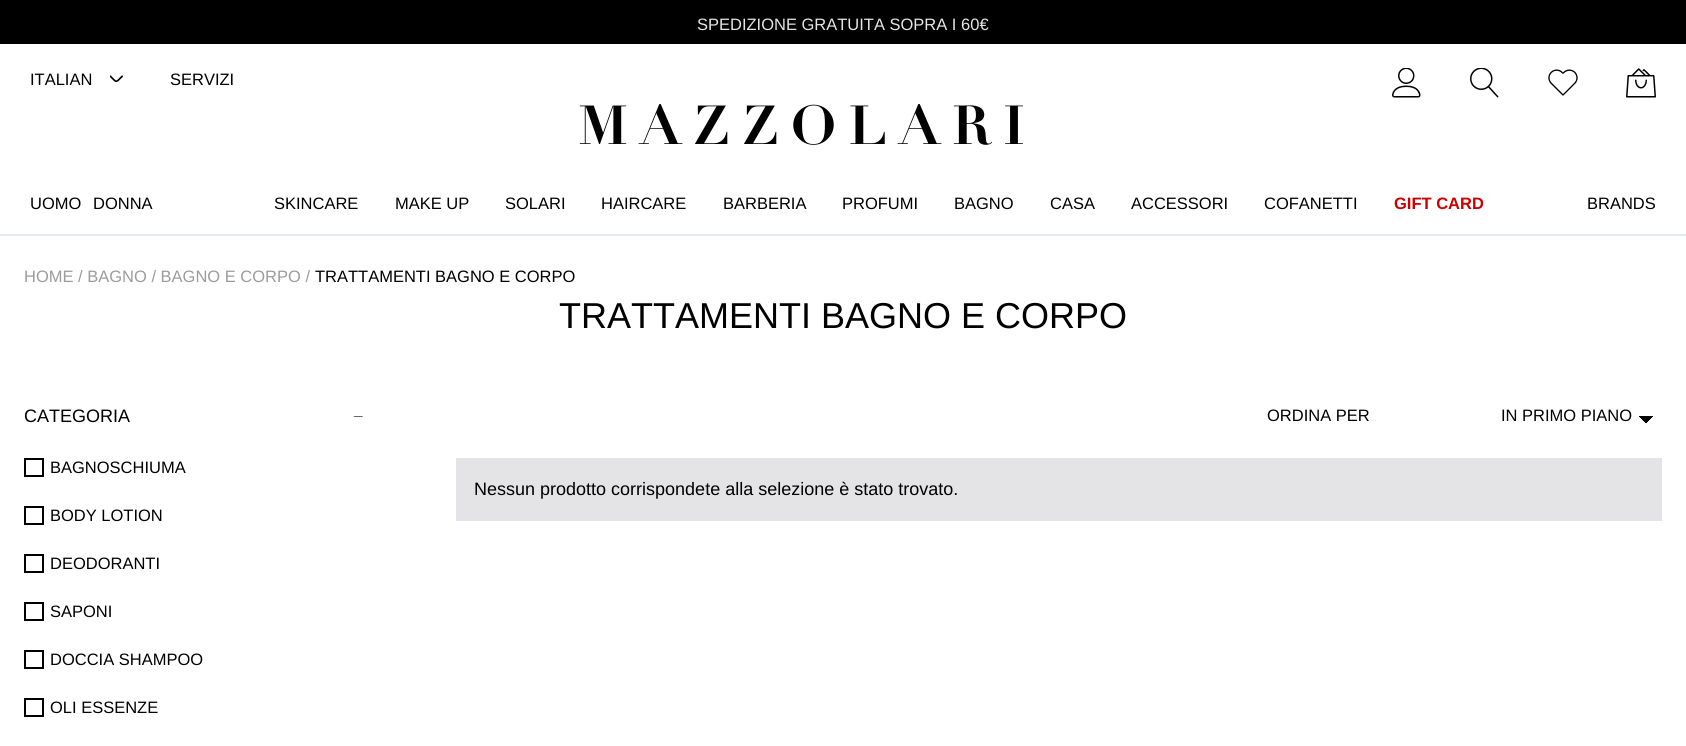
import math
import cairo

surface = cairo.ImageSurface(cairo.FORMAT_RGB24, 1686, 746)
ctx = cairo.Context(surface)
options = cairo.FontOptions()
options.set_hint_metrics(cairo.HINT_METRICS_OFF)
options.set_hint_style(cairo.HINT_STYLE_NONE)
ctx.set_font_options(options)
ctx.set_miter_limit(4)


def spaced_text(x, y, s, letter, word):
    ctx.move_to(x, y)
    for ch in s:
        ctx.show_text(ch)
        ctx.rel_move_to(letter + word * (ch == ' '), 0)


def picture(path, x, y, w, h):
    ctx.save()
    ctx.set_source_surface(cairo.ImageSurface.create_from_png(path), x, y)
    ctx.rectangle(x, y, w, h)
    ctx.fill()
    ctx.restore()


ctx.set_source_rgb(1, 1, 1)
ctx.paint()
ctx.set_source_rgb(0, 0, 0)
ctx.rectangle(0, 0, 1686, 44)
ctx.fill()
ctx.select_font_face("Liberation Sans")
ctx.set_font_size(16.5)
ctx.set_source_rgb(0.902, 0.902, 0.902)
ctx.move_to(697, 30)
ctx.show_text("SPEDIZIONE GRATUITA SOPRA I 60€")
ctx.set_source_rgb(0.886, 0.91, 0.941)
ctx.rectangle(0, 234, 1686, 2)
ctx.fill()
ctx.set_source_rgb(0, 0, 0)
ctx.move_to(30, 85)
ctx.show_text("ITALIAN")
picture("img1.png", 110, 75, 13, 8)
ctx.move_to(170, 85)
ctx.show_text("SERVIZI")
picture("img2.png", 1392, 68, 29, 30)
picture("img3.png", 1470, 68, 29, 30)
picture("img4.png", 1548, 69, 30, 27)
picture("img5.png", 1626, 68, 30, 30)
ctx.select_font_face("Didot", cairo.FONT_SLANT_NORMAL, cairo.FONT_WEIGHT_BOLD)
ctx.set_font_size(54)
spaced_text(578, 144, "MAZZOLARI", 12, 0)
ctx.select_font_face("Liberation Sans")
ctx.set_font_size(16.5)
ctx.move_to(30, 209)
ctx.show_text("UOMO")
ctx.move_to(93, 209)
ctx.show_text("DONNA")
ctx.move_to(274, 209)
ctx.show_text("SKINCARE")
ctx.move_to(395, 209)
ctx.show_text("MAKE UP")
ctx.move_to(505, 209)
ctx.show_text("SOLARI")
ctx.move_to(601, 209)
ctx.show_text("HAIRCARE")
ctx.move_to(723, 209)
ctx.show_text("BARBERIA")
ctx.move_to(842, 209)
ctx.show_text("PROFUMI")
ctx.move_to(954, 209)
ctx.show_text("BAGNO")
ctx.move_to(1050, 209)
ctx.show_text("CASA")
ctx.move_to(1131, 209)
ctx.show_text("ACCESSORI")
ctx.move_to(1264, 209)
ctx.show_text("COFANETTI")
ctx.select_font_face("Liberation Sans", cairo.FONT_SLANT_NORMAL, cairo.FONT_WEIGHT_BOLD)
ctx.set_source_rgb(0.8, 0, 0)
ctx.move_to(1394, 209)
ctx.show_text("GIFT CARD")
ctx.select_font_face("Liberation Sans")
ctx.set_source_rgb(0, 0, 0)
ctx.move_to(1587, 209)
ctx.show_text("BRANDS")
ctx.set_source_rgb(0.608, 0.608, 0.608)
ctx.move_to(24, 282)
ctx.show_text("HOME / BAGNO / BAGNO E CORPO /")
ctx.set_source_rgb(0, 0, 0)
ctx.move_to(315, 282)
ctx.show_text("TRATTAMENTI BAGNO E CORPO")
ctx.set_font_size(36)
ctx.move_to(559, 328)
ctx.show_text("TRATTAMENTI BAGNO E CORPO")
ctx.set_font_size(18)
ctx.move_to(24, 422)
ctx.show_text("CATEGORIA")
picture("img6.png", 353, 416, 10, 1)
ctx.rectangle(25, 459, 18, 17)
ctx.stroke()
ctx.set_font_size(16.5)
ctx.move_to(50, 473)
ctx.show_text("BAGNOSCHIUMA")
ctx.rectangle(25, 507, 18, 17)
ctx.stroke()
ctx.move_to(50, 521)
ctx.show_text("BODY LOTION")
ctx.rectangle(25, 555, 18, 17)
ctx.stroke()
ctx.move_to(50, 569)
ctx.show_text("DEODORANTI")
ctx.rectangle(25, 603, 18, 17)
ctx.stroke()
ctx.move_to(50, 617)
ctx.show_text("SAPONI")
ctx.rectangle(25, 651, 18, 17)
ctx.stroke()
ctx.move_to(50, 665)
ctx.show_text("DOCCIA SHAMPOO")
ctx.rectangle(25, 699, 18, 17)
ctx.stroke()
ctx.move_to(50, 713)
ctx.show_text("OLI ESSENZE")
ctx.move_to(1267, 421)
ctx.show_text("ORDINA PER")
gradient = cairo.LinearGradient(1646, 416, 1653, 423)
gradient.add_color_stop_rgba(0.5, 0, 0, 0, 1)
gradient.add_color_stop_rgba(0.5, 1, 1, 1, 1)
ctx.set_source(gradient)
ctx.rectangle(1646, 416, 7, 7)
ctx.fill()
gradient = cairo.LinearGradient(1638, 423, 1646, 416)
gradient.add_color_stop_rgba(0.5, 1, 1, 1, 1)
gradient.add_color_stop_rgba(0.5, 0, 0, 0, 1)
ctx.set_source(gradient)
ctx.rectangle(1638, 416, 8, 7)
ctx.fill()
ctx.set_source_rgb(0, 0, 0)
ctx.move_to(1501, 421)
ctx.show_text("IN PRIMO PIANO")
ctx.set_source_rgb(0.894, 0.894, 0.906)
ctx.rectangle(456, 458, 1206, 63)
ctx.fill()
ctx.set_font_size(18)
ctx.set_source_rgb(0, 0, 0)
ctx.move_to(474, 495)
ctx.show_text("Nessun prodotto corrispondete alla selezione è stato trovato.")
surface.write_to_png("page.png")
